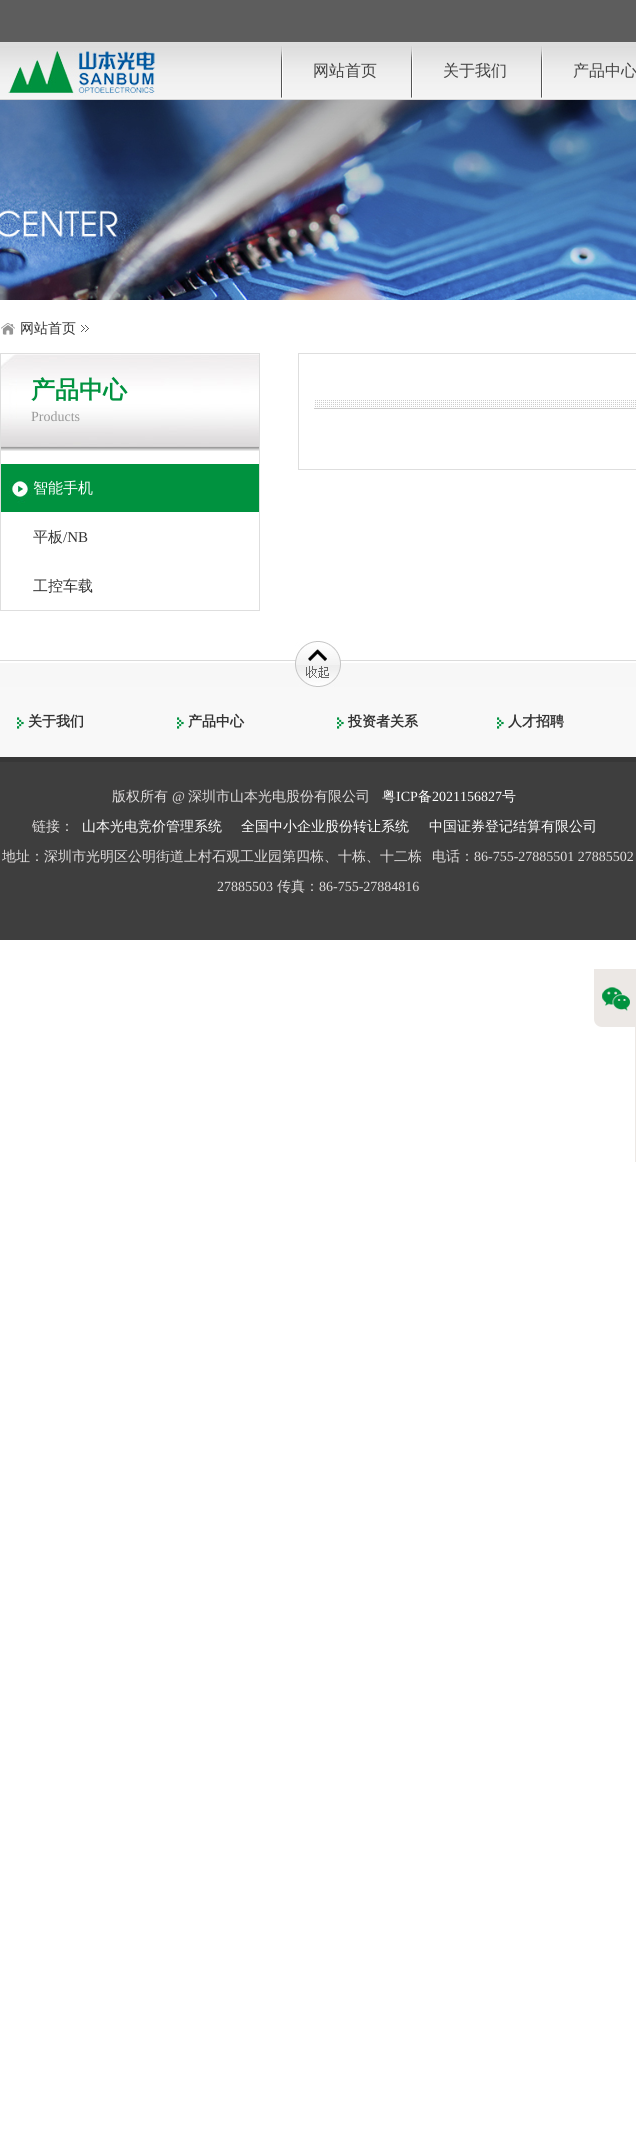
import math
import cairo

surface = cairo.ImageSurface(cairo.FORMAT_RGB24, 636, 2137)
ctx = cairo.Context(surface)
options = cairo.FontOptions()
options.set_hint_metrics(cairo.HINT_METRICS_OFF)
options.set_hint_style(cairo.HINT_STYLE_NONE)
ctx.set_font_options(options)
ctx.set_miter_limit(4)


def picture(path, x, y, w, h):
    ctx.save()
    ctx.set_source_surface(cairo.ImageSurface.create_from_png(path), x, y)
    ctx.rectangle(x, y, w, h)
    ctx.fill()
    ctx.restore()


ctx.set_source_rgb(1, 1, 1)
ctx.paint()
ctx.set_source_rgb(0.365, 0.365, 0.365)
ctx.rectangle(0, 0, 636, 42)
ctx.fill()
picture("img1.png", 0, 42, 636, 58)
picture("img2.png", 8, 50, 147, 47)
picture("img3.png", 281, 46, 2, 52)
ctx.select_font_face("WenQuanYi Zen Hei Medium")
ctx.set_font_size(16)
ctx.set_source_rgb(0.263, 0.263, 0.263)
ctx.move_to(313, 76)
ctx.show_text("网站首页")
picture("img3.png", 411, 46, 2, 52)
ctx.move_to(443, 76)
ctx.show_text("关于我们")
picture("img3.png", 541, 46, 2, 52)
ctx.move_to(573, 76)
ctx.show_text("产品中心")
picture("img4.png", 0, 100, 636, 200)
picture("img5.png", 1, 323, 14, 12)
ctx.set_font_size(14)
ctx.set_source_rgb(0.2, 0.2, 0.2)
ctx.move_to(20, 333)
ctx.show_text("网站首页")
picture("img6.png", 81, 325, 8, 7)
ctx.rectangle(0.5, 353.5, 259, 257)
ctx.set_source_rgb(0.871, 0.871, 0.871)
ctx.set_line_width(1)
ctx.stroke()
picture("img7.png", 1, 354, 258, 97)
ctx.select_font_face("WenQuanYi Zen Hei", cairo.FONT_SLANT_NORMAL, cairo.FONT_WEIGHT_BOLD)
ctx.set_font_size(24)
ctx.set_source_rgb(0, 0.573, 0.247)
ctx.move_to(31, 398)
ctx.show_text("产品中心")
ctx.select_font_face("Liberation Serif")
ctx.set_font_size(14)
ctx.set_source_rgb(0.6, 0.6, 0.6)
ctx.move_to(31, 421)
ctx.show_text("Products")
picture("img8.png", 1, 464, 258, 48)
ctx.select_font_face("WenQuanYi Zen Hei Medium")
ctx.set_font_size(15)
ctx.set_source_rgb(1, 1, 1)
ctx.move_to(33, 493)
ctx.show_text("智能手机")
ctx.set_source_rgb(0.2, 0.2, 0.2)
ctx.move_to(33, 542)
ctx.show_text("平板")
ctx.select_font_face("Liberation Serif")
ctx.move_to(63, 542)
ctx.show_text("/NB")
ctx.select_font_face("WenQuanYi Zen Hei Medium")
ctx.move_to(33, 591)
ctx.show_text("工控车载")
ctx.rectangle(298.5, 353.5, 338, 116)
ctx.set_source_rgb(0.871, 0.871, 0.871)
ctx.stroke()
picture("img9.png", 314, 400, 322, 9)
picture("img10.png", 0, 660, 636, 27)
picture("img11.png", 295, 641, 46, 46)
ctx.set_source_rgb(0.969, 0.969, 0.969)
ctx.rectangle(0, 687, 636, 70)
ctx.fill()
picture("img12.png", 17, 717, 7, 12)
ctx.select_font_face("WenQuanYi Zen Hei", cairo.FONT_SLANT_NORMAL, cairo.FONT_WEIGHT_BOLD)
ctx.set_font_size(14)
ctx.set_source_rgb(0.2, 0.2, 0.2)
ctx.move_to(28, 726)
ctx.show_text("关于我们")
picture("img12.png", 177, 717, 7, 12)
ctx.move_to(188, 726)
ctx.show_text("产品中心")
picture("img12.png", 337, 717, 7, 12)
ctx.move_to(348, 726)
ctx.show_text("投资者关系")
picture("img12.png", 497, 717, 7, 12)
ctx.move_to(508, 726)
ctx.show_text("人才招聘")
ctx.set_source_rgb(0.243, 0.243, 0.243)
ctx.rectangle(0, 762, 636, 178)
ctx.fill()
ctx.set_source_rgb(0.216, 0.216, 0.216)
ctx.rectangle(0, 757, 636, 5)
ctx.fill()
ctx.select_font_face("WenQuanYi Zen Hei Medium")
ctx.set_source_rgb(0.882, 0.871, 0.871)
ctx.move_to(112, 801)
ctx.show_text("版权所有")
ctx.select_font_face("Liberation Serif")
ctx.move_to(172, 801)
ctx.show_text("@")
ctx.select_font_face("WenQuanYi Zen Hei Medium")
ctx.move_to(188, 801)
ctx.show_text("深圳市山本光电股份有限公司")
ctx.set_source_rgb(1, 1, 1)
ctx.move_to(382, 801)
ctx.show_text("粤")
ctx.select_font_face("Liberation Serif")
ctx.move_to(396, 801)
ctx.show_text("ICP")
ctx.select_font_face("WenQuanYi Zen Hei Medium")
ctx.move_to(418, 801)
ctx.show_text("备")
ctx.select_font_face("Liberation Serif")
ctx.move_to(432, 801)
ctx.show_text("2021156827")
ctx.select_font_face("WenQuanYi Zen Hei Medium")
ctx.move_to(502, 801)
ctx.show_text("号")
ctx.set_source_rgb(0.882, 0.871, 0.871)
ctx.move_to(32, 831)
ctx.show_text("链接：")
ctx.set_source_rgb(1, 1, 1)
ctx.move_to(82, 831)
ctx.show_text("山本光电竞价管理系统")
ctx.move_to(241, 831)
ctx.show_text("全国中小企业股份转让系统")
ctx.move_to(429, 831)
ctx.show_text("中国证券登记结算有限公司")
ctx.set_source_rgb(0.882, 0.871, 0.871)
ctx.move_to(2, 861)
ctx.show_text("地址：深圳市光明区公明街道上村石观工业园第四栋、十栋、十二栋")
ctx.move_to(432, 861)
ctx.show_text("电话：")
ctx.select_font_face("Liberation Serif")
ctx.move_to(474, 861)
ctx.show_text("86-755-27885501 27885502")
ctx.move_to(217, 891)
ctx.show_text("27885503")
ctx.select_font_face("WenQuanYi Zen Hei Medium")
ctx.move_to(277, 891)
ctx.show_text("传真：")
ctx.select_font_face("Liberation Serif")
ctx.move_to(319, 891)
ctx.show_text("86-755-27884816")
ctx.rectangle(635.5, 969.5, 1, 192)
ctx.set_source_rgb(0.925, 0.91, 0.898)
ctx.stroke()
ctx.new_path()
ctx.move_to(594, 969)
ctx.line_to(636, 969)
ctx.line_to(636, 1027)
ctx.line_to(602, 1027)
ctx.curve_to(597.5, 1027, 594, 1023.5, 594, 1019)
ctx.close_path()
ctx.fill()
picture("img13.png", 602, 987, 28, 24)
surface.write_to_png("page.png")
